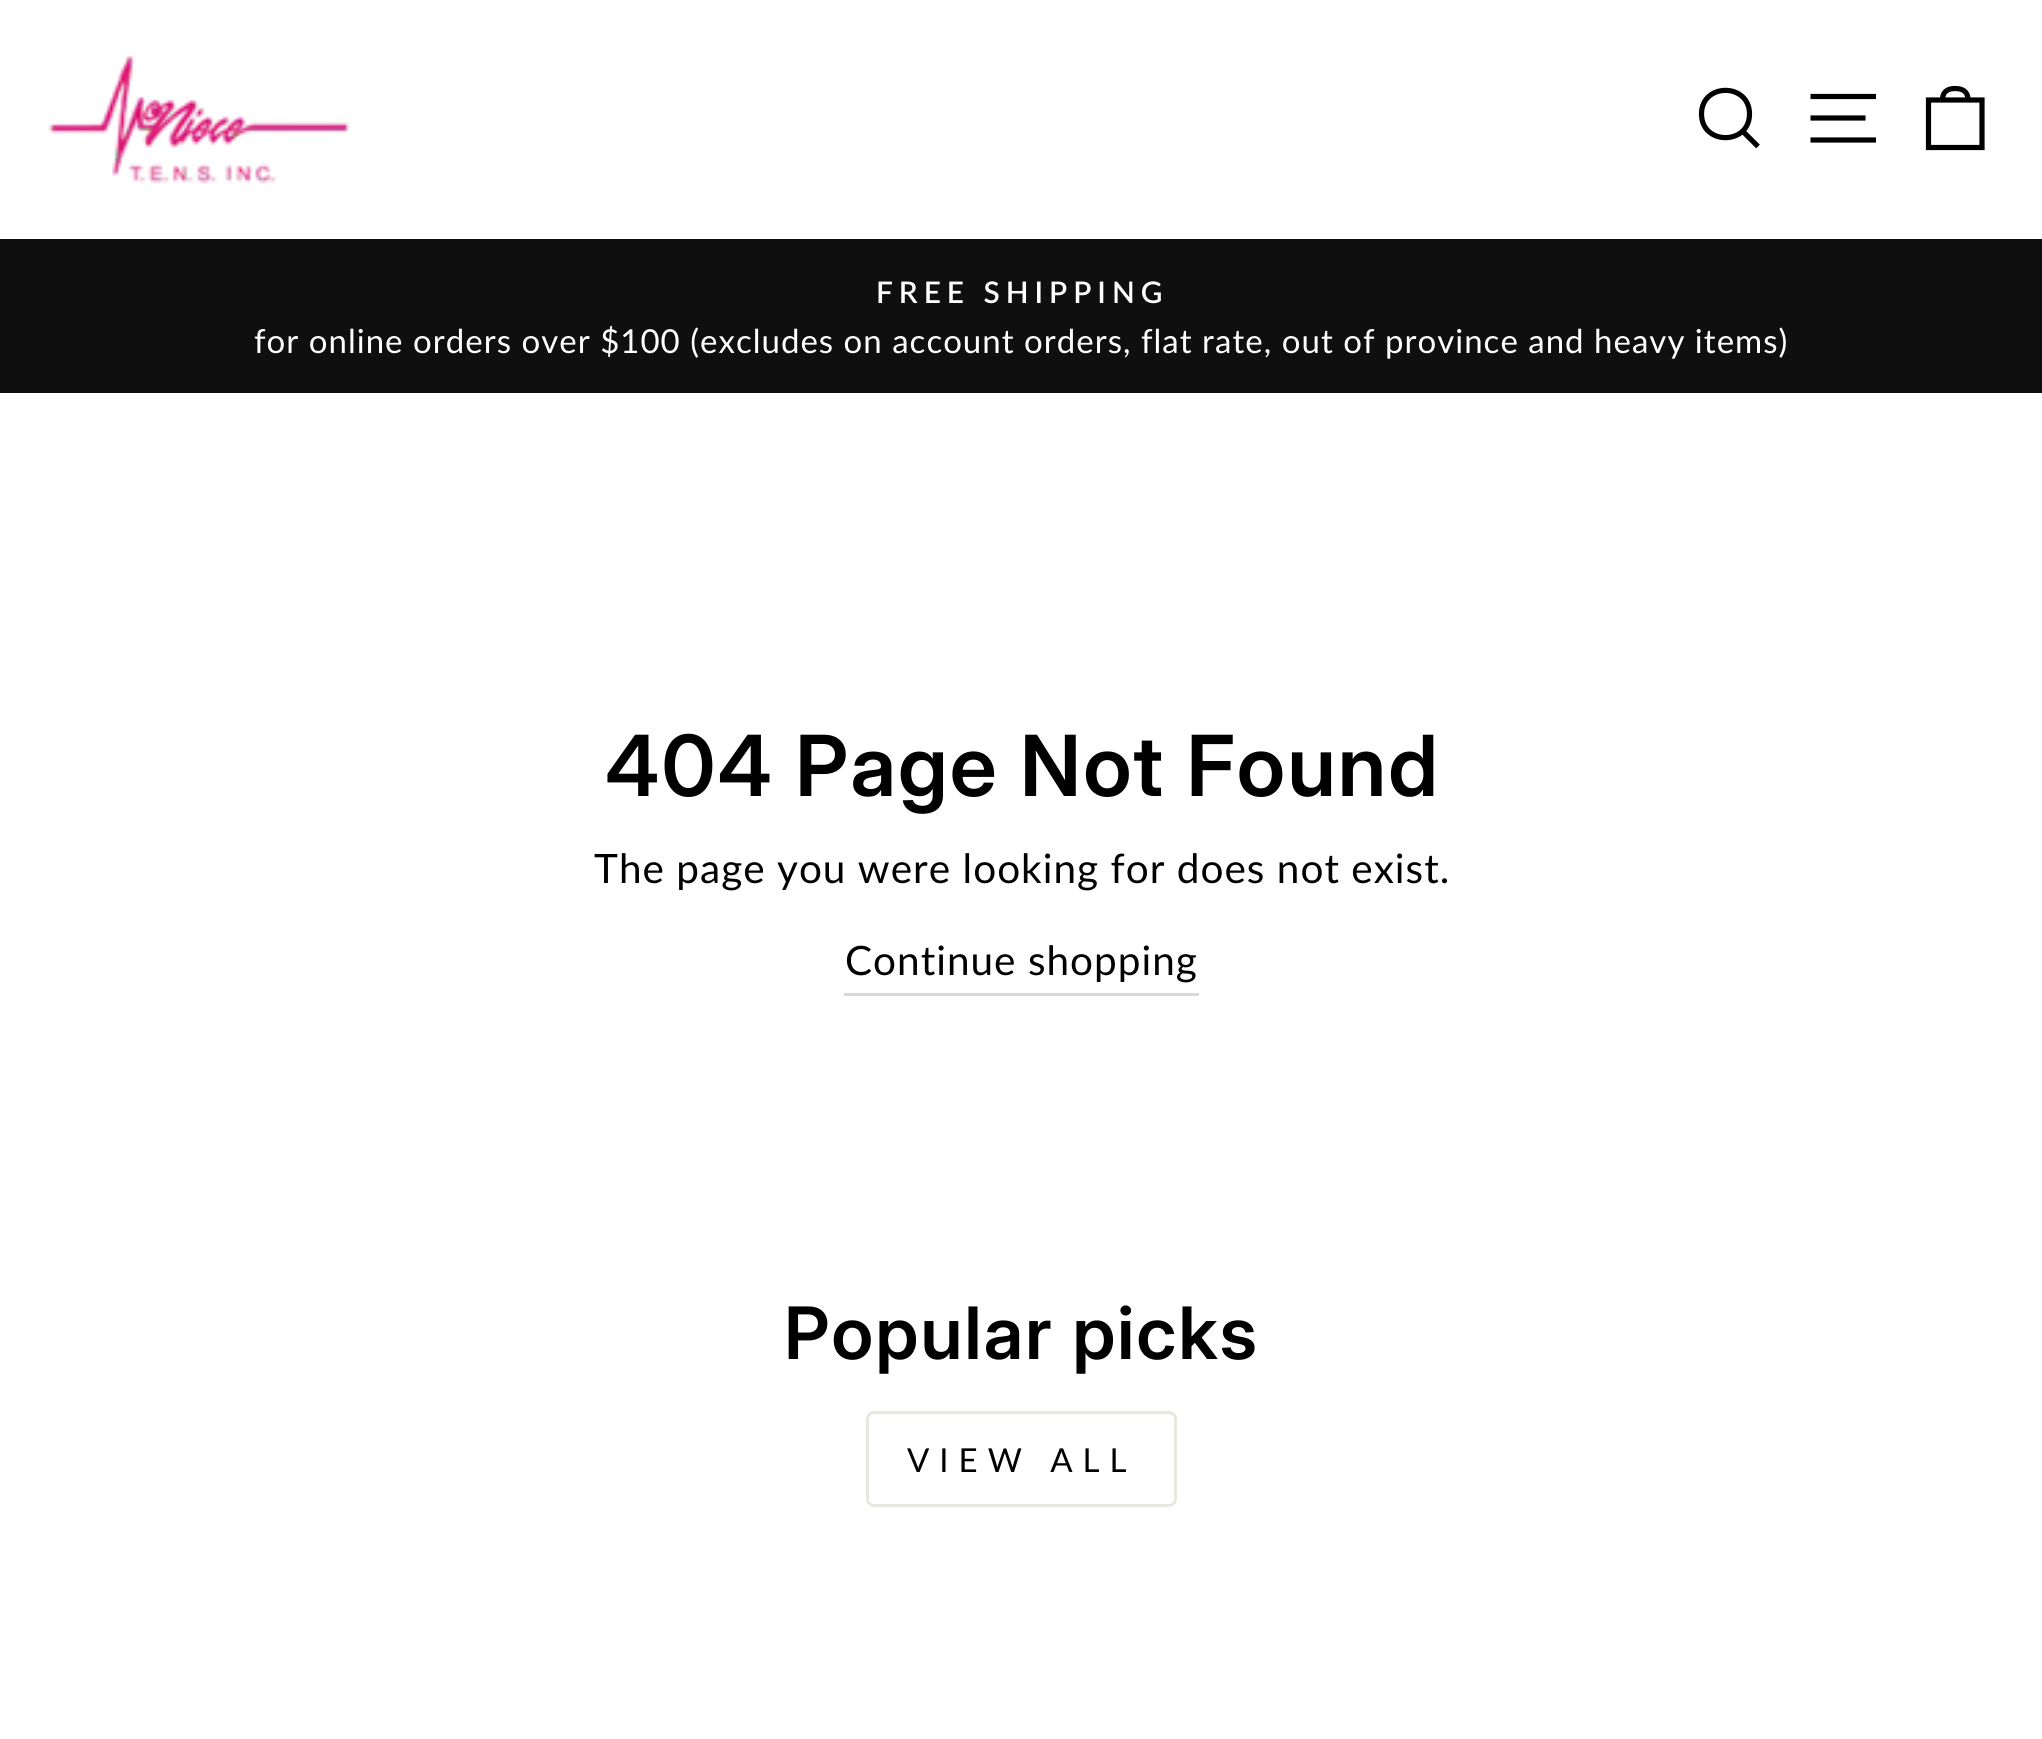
import math
import cairo

surface = cairo.ImageSurface(cairo.FORMAT_RGB24, 2042, 1739)
ctx = cairo.Context(surface)
options = cairo.FontOptions()
options.set_hint_metrics(cairo.HINT_METRICS_OFF)
options.set_hint_style(cairo.HINT_STYLE_NONE)
ctx.set_font_options(options)
ctx.set_miter_limit(4)


def spaced_text(x, y, s, letter, word):
    ctx.move_to(x, y)
    for ch in s:
        ctx.show_text(ch)
        ctx.rel_move_to(letter + word * (ch == ' '), 0)


def round_rect(x, y, w, h, r):
    ctx.new_sub_path()
    for i, (u, v) in enumerate([(x + w - r, y + h - r), (x + r, y + h - r), (x + r, y + r), (x + w - r, y + r)]):
        ctx.arc(u, v, r, i * math.pi / 2, (i + 1) * math.pi / 2)
    ctx.close_path()


def picture(path, x, y, w, h):
    ctx.save()
    ctx.set_source_surface(cairo.ImageSurface.create_from_png(path), x, y)
    ctx.rectangle(x, y, w, h)
    ctx.fill()
    ctx.restore()


ctx.set_source_rgb(1, 1, 1)
ctx.paint()
picture("img1.png", 48, 55, 302, 129)
ctx.new_path()
ctx.move_to(1749.5, 114)
ctx.curve_to(1749.5, 145.5, 1701.5, 145.5, 1701.5, 114)
ctx.curve_to(1701.5, 82.5, 1749.5, 82.5, 1749.5, 114)
ctx.close_path()
ctx.move_to(1758, 146.5)
ctx.line_to(1742.5, 131)
ctx.set_source_rgb(0, 0, 0)
ctx.set_line_width(5.2)
ctx.stroke()
ctx.new_path()
ctx.move_to(1810.5, 96.5)
ctx.line_to(1876, 96.5)
ctx.move_to(1810.5, 118)
ctx.line_to(1865.5, 118)
ctx.move_to(1810.5, 140)
ctx.line_to(1876, 140)
ctx.stroke()
ctx.new_path()
ctx.move_to(1928.5, 100)
ctx.line_to(1982, 100)
ctx.line_to(1982, 147.5)
ctx.line_to(1928.5, 147.5)
ctx.close_path()
ctx.stroke()
ctx.new_path()
ctx.move_to(1942.5, 100)
ctx.curve_to(1942.5, 91, 1948.5, 88.5, 1955, 88.5)
ctx.curve_to(1962, 88.5, 1968, 91, 1968, 100)
ctx.stroke()
ctx.set_source_rgb(0.059, 0.059, 0.059)
ctx.rectangle(0, 239, 2042, 154)
ctx.fill()
ctx.select_font_face("Lato SemiBold")
ctx.set_font_size(29.75)
ctx.set_source_rgb(1, 1, 1)
spaced_text(876, 303, "FREE SHIPPING", 6, 0)
ctx.select_font_face("Lato")
ctx.set_font_size(33)
spaced_text(254, 353, "for online orders over $100 (excludes on account orders, flat rate, out of province and heavy items)", 1.01, 0)
ctx.select_font_face("Inter SemiBold")
ctx.set_font_size(84.25)
ctx.set_source_rgb(0, 0, 0)
spaced_text(605, 796, "404 Page Not Found", 2.1, 0)
ctx.select_font_face("Lato")
ctx.set_font_size(40.5)
spaced_text(594, 883, "The page you were looking for does not exist.", 1.01, 0)
ctx.set_source_rgb(0.851, 0.851, 0.851)
ctx.rectangle(844, 993, 355, 3)
ctx.fill()
ctx.set_source_rgb(0, 0, 0)
spaced_text(845, 975, "Continue shopping", 1.01, 0)
ctx.select_font_face("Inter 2 SemiBold")
ctx.set_font_size(72.25)
spaced_text(784, 1359, "Popular picks", 1.75, 0)
round_rect(867.5, 1412.5, 308, 93, 6.5)
ctx.set_source_rgb(0.91, 0.91, 0.882)
ctx.set_line_width(3)
ctx.stroke()
ctx.select_font_face("Lato")
ctx.set_font_size(33)
ctx.set_source_rgb(0, 0, 0)
spaced_text(907, 1472, "VIEW ALL", 10, 0)
surface.write_to_png("page.png")
